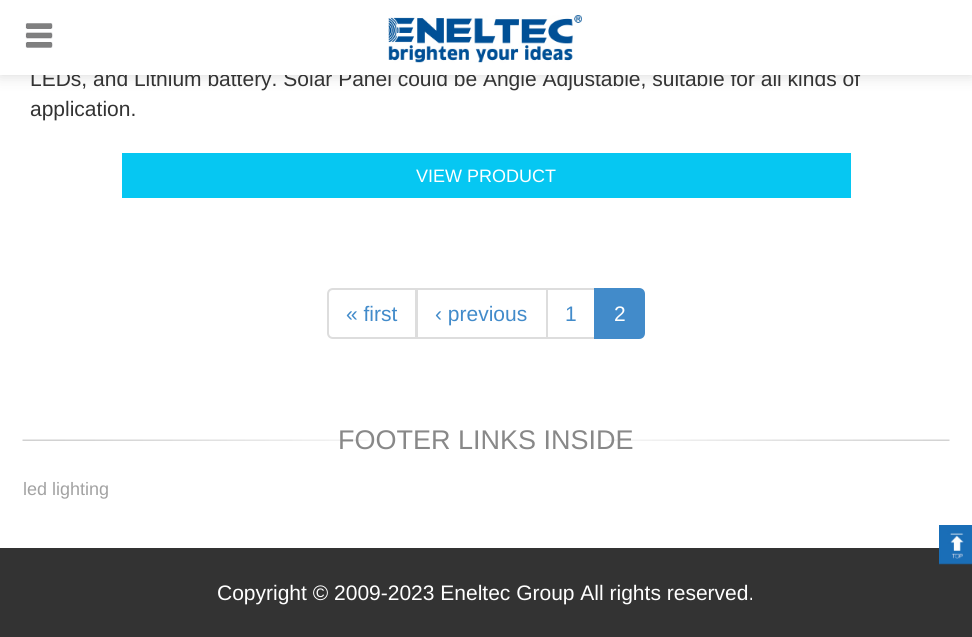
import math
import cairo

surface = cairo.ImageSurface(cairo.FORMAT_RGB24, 972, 637)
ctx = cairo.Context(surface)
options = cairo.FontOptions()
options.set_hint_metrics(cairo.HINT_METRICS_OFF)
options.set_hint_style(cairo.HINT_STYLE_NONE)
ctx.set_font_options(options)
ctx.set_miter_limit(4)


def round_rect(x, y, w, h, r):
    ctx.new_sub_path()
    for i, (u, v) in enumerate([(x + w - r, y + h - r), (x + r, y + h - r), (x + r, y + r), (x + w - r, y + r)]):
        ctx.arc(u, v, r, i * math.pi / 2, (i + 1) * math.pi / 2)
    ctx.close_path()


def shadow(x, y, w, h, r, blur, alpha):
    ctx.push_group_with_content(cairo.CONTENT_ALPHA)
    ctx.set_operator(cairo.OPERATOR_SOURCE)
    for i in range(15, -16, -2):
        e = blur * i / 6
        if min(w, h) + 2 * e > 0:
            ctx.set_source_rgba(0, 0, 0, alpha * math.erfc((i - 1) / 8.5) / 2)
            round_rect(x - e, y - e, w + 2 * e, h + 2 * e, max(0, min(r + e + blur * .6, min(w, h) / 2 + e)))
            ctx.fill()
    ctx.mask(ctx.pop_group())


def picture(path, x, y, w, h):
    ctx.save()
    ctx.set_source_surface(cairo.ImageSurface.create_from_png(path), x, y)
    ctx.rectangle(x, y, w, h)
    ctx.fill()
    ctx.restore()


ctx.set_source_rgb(1, 1, 1)
ctx.paint()
ctx.set_source_rgb(0.847, 0.847, 0.847)
shadow(0, 0, 972, 75, 0, 7.5, 1)
ctx.select_font_face("Liberation Sans")
ctx.set_font_size(21)
ctx.set_source_rgb(0.2, 0.2, 0.2)
ctx.move_to(30, 86)
ctx.show_text("LEDs, and Lithium battery. Solar Panel could be Angle Adjustable, suitable for all kinds of")
ctx.set_source_rgb(1, 1, 1)
ctx.rectangle(0, 0, 972, 75)
ctx.fill()
picture("img1.png", 25, 23, 28, 25)
picture("img2.png", 388, 15, 194, 48)
ctx.set_source_rgb(0.2, 0.2, 0.2)
ctx.move_to(30, 116)
ctx.show_text("application.")
ctx.set_source_rgb(0.024, 0.78, 0.949)
ctx.rectangle(122, 153, 729, 45)
ctx.fill()
ctx.set_font_size(18)
ctx.set_source_rgb(1, 1, 1)
ctx.move_to(416, 182)
ctx.show_text("VIEW PRODUCT")
ctx.new_path()
ctx.move_to(333, 289)
ctx.line_to(416, 289)
ctx.line_to(416, 338)
ctx.line_to(333, 338)
ctx.curve_to(330, 338, 328, 336, 328, 333)
ctx.line_to(328, 294)
ctx.curve_to(328, 291, 330, 289, 333, 289)
ctx.close_path()
ctx.set_source_rgb(0.867, 0.867, 0.867)
ctx.stroke()
ctx.set_font_size(21)
ctx.set_source_rgb(0.259, 0.545, 0.792)
ctx.move_to(346, 321)
ctx.show_text("« first")
ctx.rectangle(417, 289, 130, 49)
ctx.set_source_rgb(0.867, 0.867, 0.867)
ctx.stroke()
ctx.set_source_rgb(0.259, 0.545, 0.792)
ctx.move_to(435, 321)
ctx.show_text("‹ previous")
ctx.rectangle(547, 289, 48, 49)
ctx.set_source_rgb(0.867, 0.867, 0.867)
ctx.stroke()
ctx.set_source_rgb(0.259, 0.545, 0.792)
ctx.move_to(565, 321)
ctx.show_text("1")
ctx.new_path()
ctx.move_to(595, 289)
ctx.line_to(639, 289)
ctx.curve_to(642, 289, 644, 291, 644, 294)
ctx.line_to(644, 333)
ctx.curve_to(644, 336, 642, 338, 639, 338)
ctx.line_to(595, 338)
ctx.close_path()
ctx.fill_preserve()
ctx.stroke()
ctx.set_source_rgb(1, 1, 1)
ctx.move_to(614, 321)
ctx.show_text("2")
picture("img3.png", 22, 439, 928, 2)
ctx.set_font_size(27)
ctx.set_source_rgb(0.533, 0.533, 0.533)
ctx.move_to(338, 449)
ctx.show_text("FOOTER LINKS INSIDE")
ctx.set_font_size(18)
ctx.set_source_rgb(0.635, 0.635, 0.635)
ctx.move_to(23, 495)
ctx.show_text("led lighting")
ctx.set_source_rgb(0.2, 0.2, 0.2)
ctx.rectangle(0, 548, 972, 89)
ctx.fill()
ctx.set_font_size(21)
ctx.set_source_rgb(1, 1, 1)
ctx.move_to(217, 600)
ctx.show_text("Copyright © 2009-2023 Eneltec Group All rights reserved.")
picture("img4.png", 939, 525, 33, 40)
surface.write_to_png("page.png")
